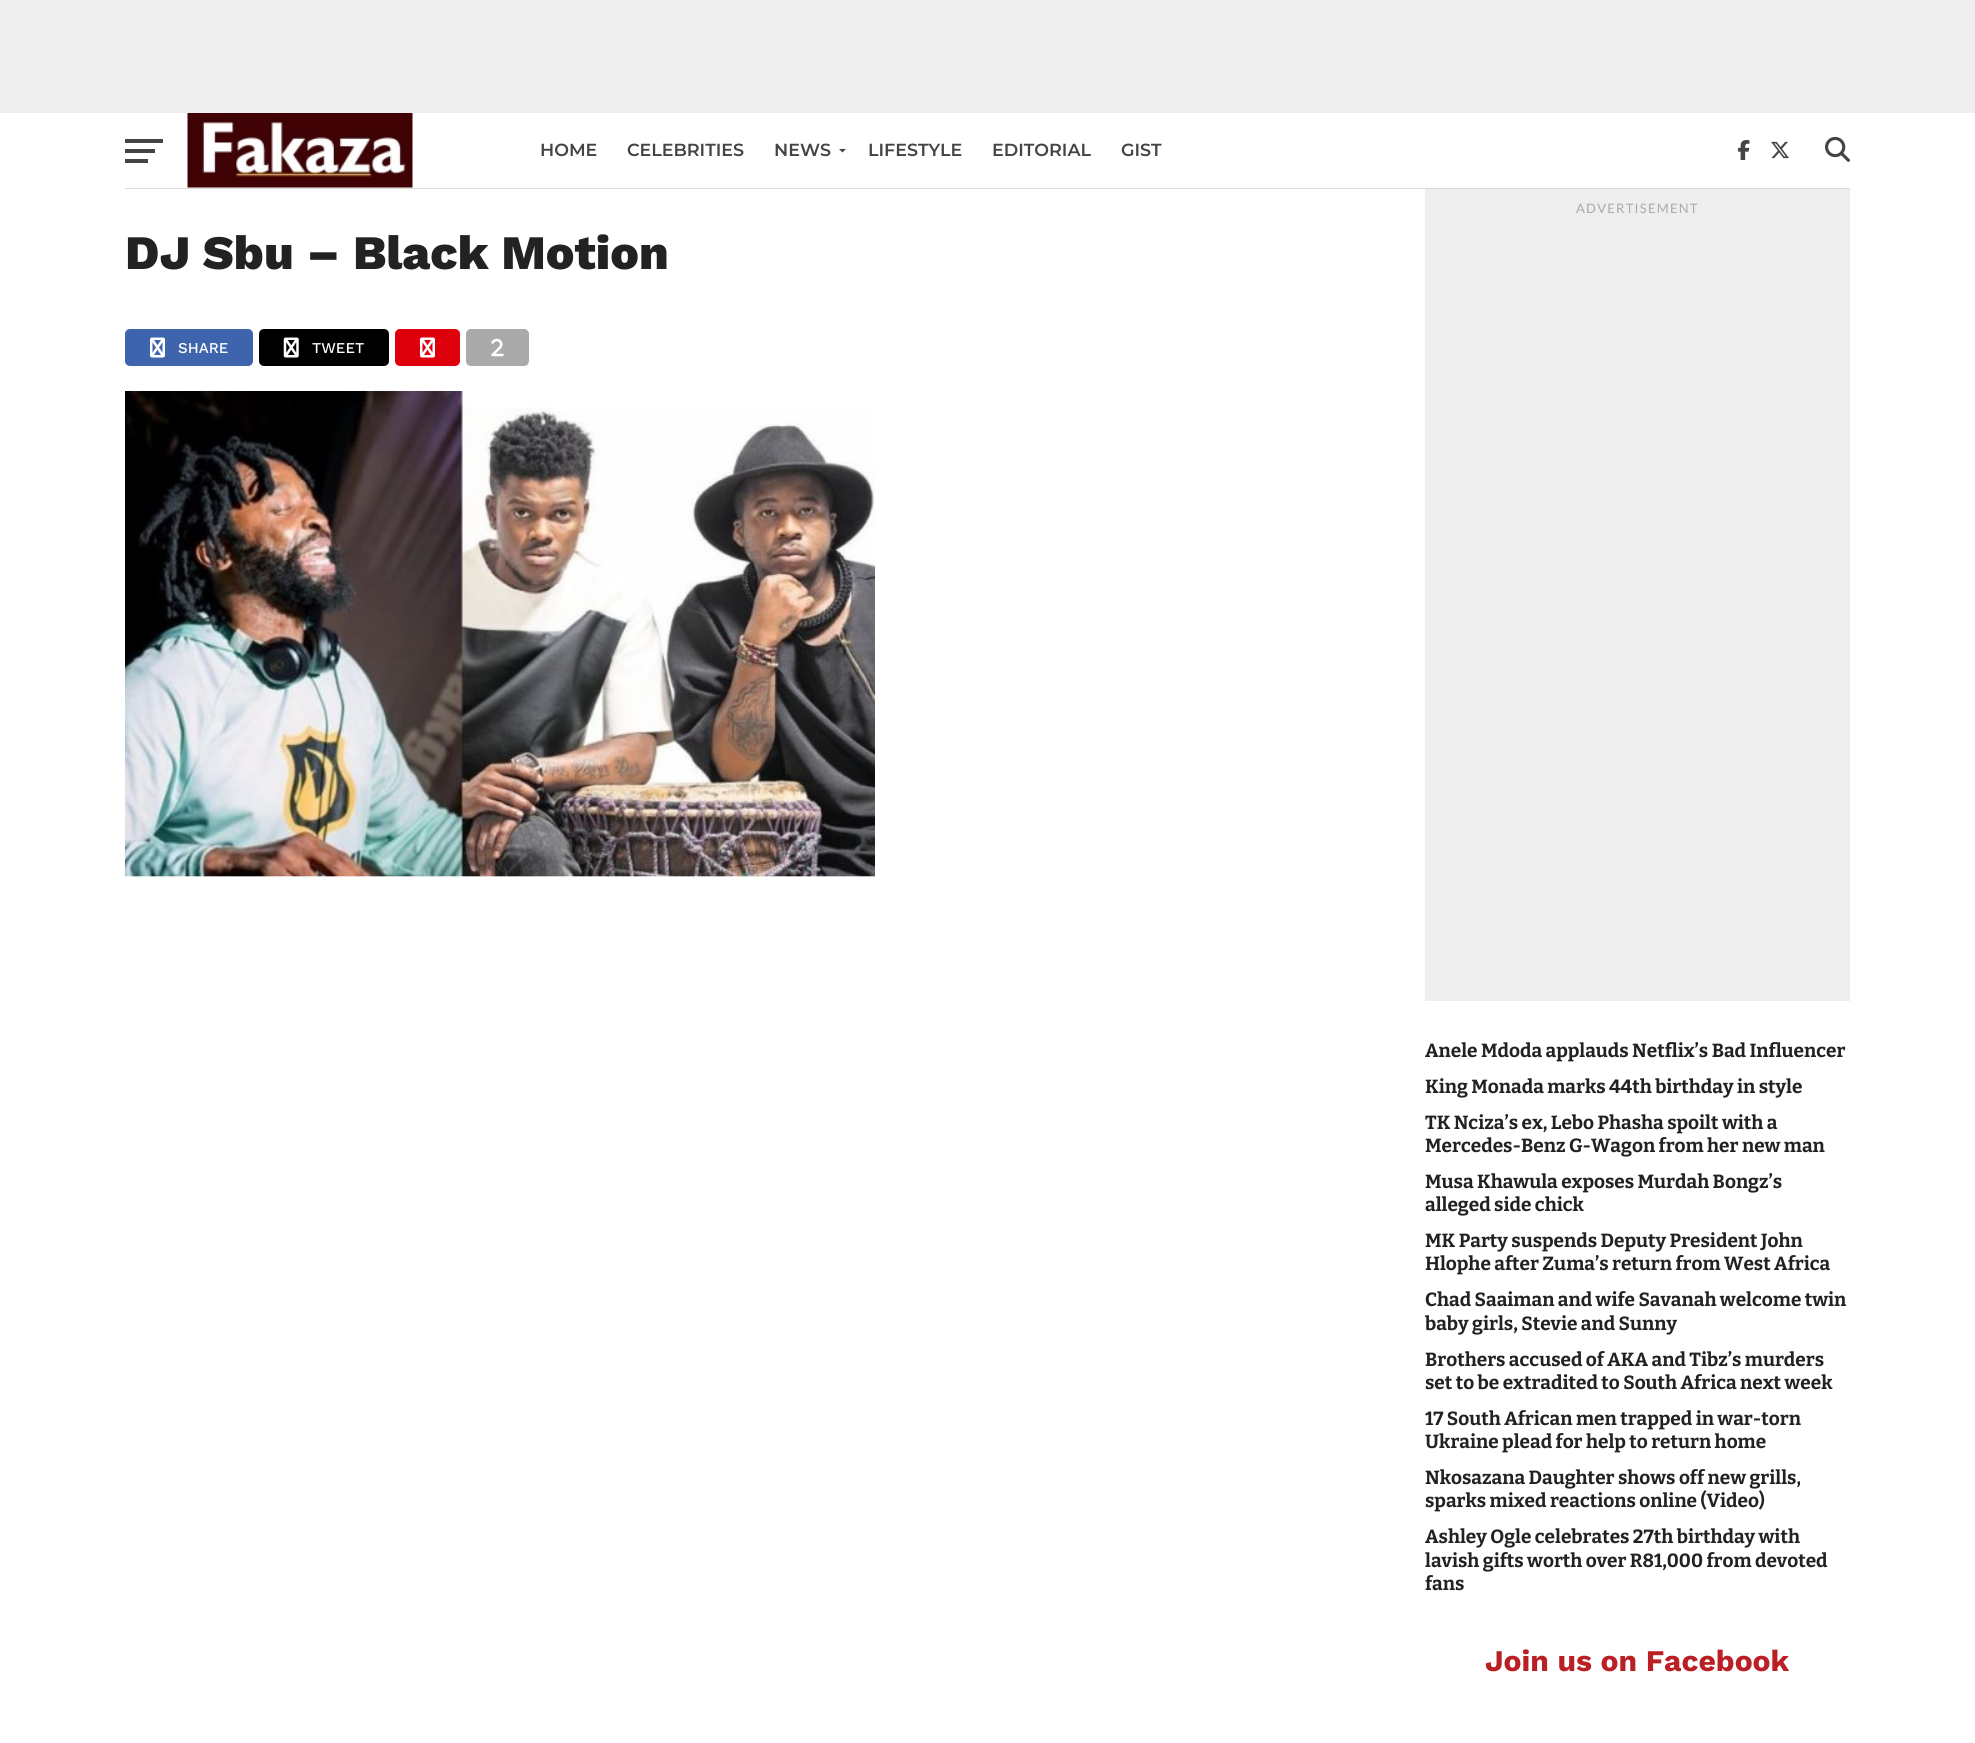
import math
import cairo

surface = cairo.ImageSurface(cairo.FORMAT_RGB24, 1975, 1743)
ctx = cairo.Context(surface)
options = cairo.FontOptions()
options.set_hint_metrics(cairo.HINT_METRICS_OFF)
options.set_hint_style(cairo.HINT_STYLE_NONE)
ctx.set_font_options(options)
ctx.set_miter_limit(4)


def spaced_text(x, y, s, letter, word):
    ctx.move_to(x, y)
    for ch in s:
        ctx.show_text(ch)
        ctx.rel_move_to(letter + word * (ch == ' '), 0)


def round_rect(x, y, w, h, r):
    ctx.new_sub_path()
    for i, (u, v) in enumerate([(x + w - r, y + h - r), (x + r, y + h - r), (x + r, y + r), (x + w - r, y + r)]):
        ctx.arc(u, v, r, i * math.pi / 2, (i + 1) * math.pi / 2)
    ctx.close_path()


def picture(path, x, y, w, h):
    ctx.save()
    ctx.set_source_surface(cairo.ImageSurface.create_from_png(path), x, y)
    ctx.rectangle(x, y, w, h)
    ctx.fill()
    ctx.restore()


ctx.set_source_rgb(1, 1, 1)
ctx.paint()
ctx.set_source_rgb(0.933, 0.933, 0.933)
ctx.rectangle(0, 0, 1975, 113)
ctx.fill()
ctx.set_source_rgb(0.267, 0.267, 0.267)
ctx.rectangle(125, 139, 38, 4)
ctx.fill()
ctx.rectangle(125, 149, 30, 4)
ctx.fill()
ctx.rectangle(125, 159, 23, 4)
ctx.fill()
picture("img1.png", 187, 113, 226, 75)
ctx.select_font_face("Montserrat SemiBold")
ctx.set_font_size(17.5)
ctx.move_to(540, 156)
ctx.show_text("HOME")
ctx.move_to(627, 156)
ctx.show_text("CELEBRITIES")
ctx.move_to(774, 156)
ctx.show_text("NEWS")
ctx.new_path()
ctx.move_to(839, 149)
ctx.line_to(846, 149)
ctx.line_to(842.5, 152.5)
ctx.close_path()
ctx.fill()
ctx.move_to(868, 156)
ctx.show_text("LIFESTYLE")
ctx.move_to(992, 156)
ctx.show_text("EDITORIAL")
ctx.move_to(1121, 156)
ctx.show_text("GIST")
picture("img2.png", 1738, 140, 12, 20)
picture("img3.png", 1771, 141, 18, 18)
picture("img4.png", 1825, 136, 25, 26)
ctx.set_source_rgb(0.867, 0.867, 0.867)
ctx.rectangle(125, 188, 1725, 1)
ctx.fill()
ctx.select_font_face("Work Sans ExtraBold")
ctx.set_font_size(48)
ctx.set_source_rgb(0.133, 0.133, 0.133)
ctx.move_to(125, 269)
ctx.show_text("DJ Sbu – Black Motion")
ctx.set_source_rgb(0.243, 0.392, 0.678)
round_rect(125, 329, 128, 37, 5)
ctx.fill()
picture("img5.png", 150, 337, 15, 21)
ctx.select_font_face("Work Sans Medium")
ctx.set_font_size(15)
ctx.set_source_rgb(1, 1, 1)
ctx.move_to(178, 353)
ctx.show_text("SHARE")
ctx.set_source_rgb(0, 0, 0)
round_rect(259, 329, 130, 37, 5)
ctx.fill()
picture("img6.png", 283, 337, 16, 21)
ctx.set_source_rgb(1, 1, 1)
ctx.move_to(312, 353)
ctx.show_text("TWEET")
ctx.set_source_rgb(0.871, 0.004, 0.051)
round_rect(395, 329, 65, 37, 5)
ctx.fill()
picture("img7.png", 420, 337, 15, 21)
ctx.set_source_rgb(0.667, 0.667, 0.667)
round_rect(466, 329, 63, 37, 5)
ctx.fill()
picture("img8.png", 491, 338, 13, 19)
picture("img9.png", 125, 391, 750, 486)
ctx.set_source_rgb(0.933, 0.933, 0.933)
ctx.rectangle(1425, 189, 425, 812)
ctx.fill()
ctx.select_font_face("Lato")
ctx.set_font_size(13)
ctx.set_source_rgb(0.667, 0.667, 0.667)
spaced_text(1576, 213, "ADVERTISEMENT", 1.25, 0)
ctx.select_font_face("Bitter", cairo.FONT_SLANT_NORMAL, cairo.FONT_WEIGHT_BOLD)
ctx.set_font_size(19)
ctx.set_source_rgb(0.133, 0.133, 0.133)
ctx.move_to(1425, 1057)
ctx.show_text("Anele Mdoda applauds Netflix’s Bad Influencer")
ctx.move_to(1425, 1093)
ctx.show_text("King Monada marks 44th birthday in style")
ctx.move_to(1425, 1129)
ctx.show_text("TK Nciza’s ex, Lebo Phasha spoilt with a")
ctx.move_to(1425, 1152)
ctx.show_text("Mercedes-Benz G-Wagon from her new man")
ctx.move_to(1425, 1188)
ctx.show_text("Musa Khawula exposes Murdah Bongz’s")
ctx.move_to(1425, 1211)
ctx.show_text("alleged side chick")
ctx.move_to(1425, 1247)
ctx.show_text("MK Party suspends Deputy President John")
ctx.move_to(1425, 1270)
ctx.show_text("Hlophe after Zuma’s return from West Africa")
ctx.move_to(1425, 1306)
ctx.show_text("Chad Saaiman and wife Savanah welcome twin")
ctx.move_to(1425, 1330)
ctx.show_text("baby girls, Stevie and Sunny")
ctx.move_to(1425, 1366)
ctx.show_text("Brothers accused of AKA and Tibz’s murders")
ctx.move_to(1425, 1389)
ctx.show_text("set to be extradited to South Africa next week")
ctx.move_to(1425, 1425)
ctx.show_text("17 South African men trapped in war-torn")
ctx.move_to(1425, 1448)
ctx.show_text("Ukraine plead for help to return home")
ctx.move_to(1425, 1484)
ctx.show_text("Nkosazana Daughter shows off new grills,")
ctx.move_to(1425, 1507)
ctx.show_text("sparks mixed reactions online (Video)")
ctx.move_to(1425, 1543)
ctx.show_text("Ashley Ogle celebrates 27th birthday with")
ctx.move_to(1425, 1567)
ctx.show_text("lavish gifts worth over R81,000 from devoted")
ctx.move_to(1425, 1590)
ctx.show_text("fans")
ctx.select_font_face("Work Sans", cairo.FONT_SLANT_NORMAL, cairo.FONT_WEIGHT_BOLD)
ctx.set_font_size(30)
ctx.set_source_rgb(0.729, 0.122, 0.141)
ctx.move_to(1485, 1671)
ctx.show_text("Join us on Facebook")
surface.write_to_png("page.png")
